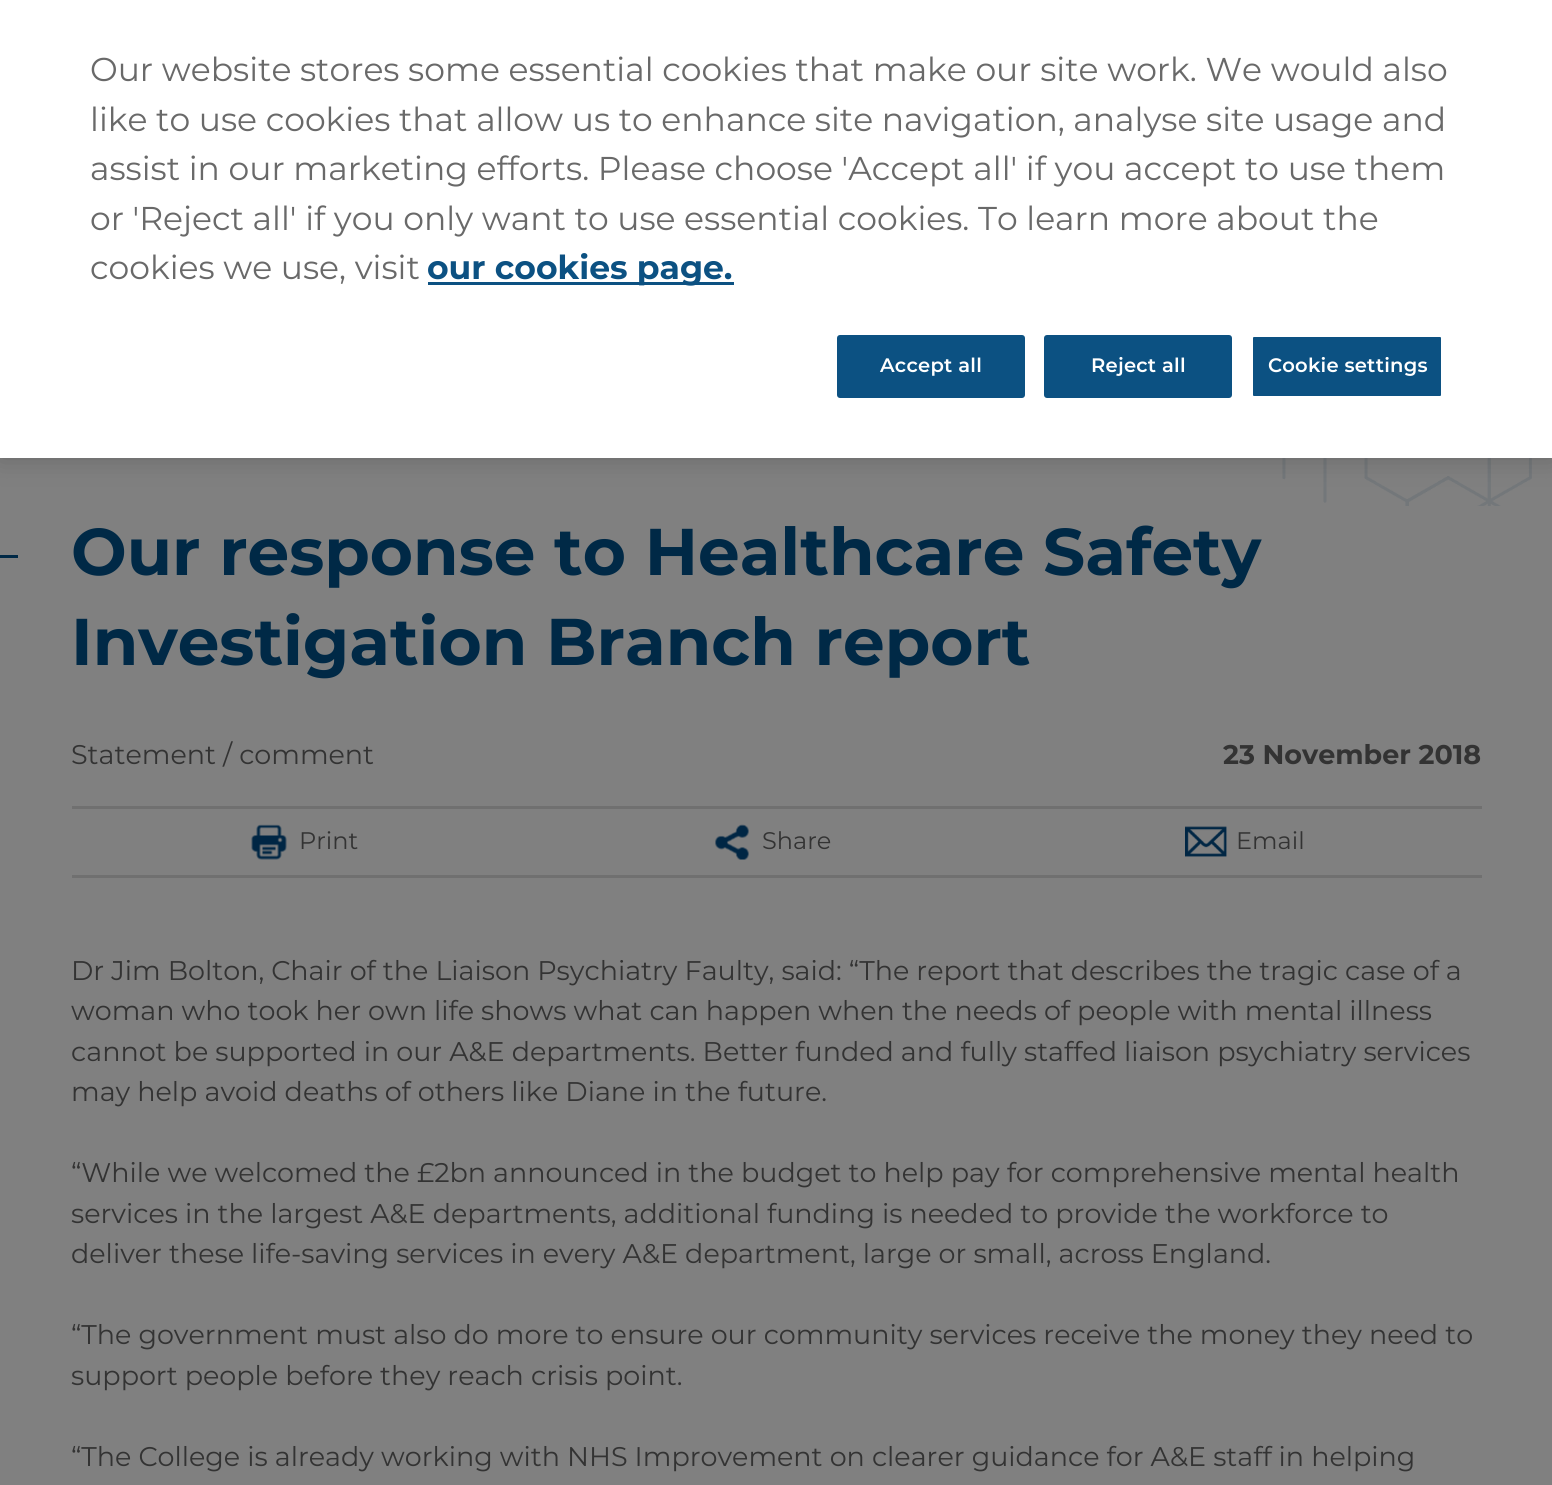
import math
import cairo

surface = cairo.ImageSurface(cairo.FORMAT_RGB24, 1552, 1485)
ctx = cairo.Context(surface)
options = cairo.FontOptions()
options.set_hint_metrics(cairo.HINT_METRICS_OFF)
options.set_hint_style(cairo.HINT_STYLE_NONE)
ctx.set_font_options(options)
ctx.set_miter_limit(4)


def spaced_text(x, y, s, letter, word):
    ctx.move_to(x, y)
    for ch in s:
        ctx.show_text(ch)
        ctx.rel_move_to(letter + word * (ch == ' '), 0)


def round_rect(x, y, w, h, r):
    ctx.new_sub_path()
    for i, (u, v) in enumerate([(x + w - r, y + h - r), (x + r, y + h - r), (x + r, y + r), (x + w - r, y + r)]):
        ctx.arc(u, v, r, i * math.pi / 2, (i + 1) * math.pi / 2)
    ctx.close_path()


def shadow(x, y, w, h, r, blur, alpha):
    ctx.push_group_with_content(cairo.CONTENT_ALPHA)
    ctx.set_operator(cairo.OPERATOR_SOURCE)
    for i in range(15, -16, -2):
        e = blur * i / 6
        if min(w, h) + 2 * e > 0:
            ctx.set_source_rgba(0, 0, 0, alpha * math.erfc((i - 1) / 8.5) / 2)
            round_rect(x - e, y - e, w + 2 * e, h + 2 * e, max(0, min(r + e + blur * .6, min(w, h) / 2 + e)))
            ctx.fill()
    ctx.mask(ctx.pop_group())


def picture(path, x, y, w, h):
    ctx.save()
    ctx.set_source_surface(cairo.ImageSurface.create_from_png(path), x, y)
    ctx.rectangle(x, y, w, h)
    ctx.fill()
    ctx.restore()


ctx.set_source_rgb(0.502, 0.502, 0.502)
ctx.paint()
picture("img1.png", 1282, 458, 250, 48)
ctx.set_source_rgb(0, 0, 0)
shadow(0, 0, 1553, 458, 0, 13.5, 0.2)
ctx.set_source_rgb(1, 1, 1)
ctx.rectangle(0, 0, 1552, 458)
ctx.fill()
ctx.select_font_face("Montserrat")
ctx.set_font_size(33)
ctx.set_source_rgb(0.412, 0.412, 0.412)
ctx.move_to(90, 81)
ctx.show_text("Our website stores some essential cookies that make our site work. We would also")
ctx.move_to(90, 131)
ctx.show_text("like to use cookies that allow us to enhance site navigation, analyse site usage and")
ctx.move_to(90, 180)
ctx.show_text("assist in our marketing efforts. Please choose 'Accept all' if you accept to use them")
ctx.move_to(90, 230)
ctx.show_text("or 'Reject all' if you only want to use essential cookies. To learn more about the")
ctx.move_to(90, 279)
ctx.show_text("cookies we use, visit")
ctx.set_source_rgb(0.047, 0.318, 0.51)
ctx.rectangle(428, 282, 306, 3)
ctx.fill()
ctx.select_font_face("Montserrat", cairo.FONT_SLANT_NORMAL, cairo.FONT_WEIGHT_BOLD)
ctx.move_to(427, 279)
ctx.show_text("our cookies page.")
round_rect(838, 336, 186, 61, 2)
ctx.fill_preserve()
ctx.stroke()
ctx.select_font_face("Montserrat SemiBold")
ctx.set_font_size(19.5)
ctx.set_source_rgb(1, 1, 1)
spaced_text(880, 372, "Accept all", 0.25, 0)
ctx.set_source_rgb(0.047, 0.318, 0.51)
round_rect(1045, 336, 186, 61, 2)
ctx.fill_preserve()
ctx.stroke()
ctx.set_source_rgb(1, 1, 1)
spaced_text(1091, 372, "Reject all", 0.25, 0)
ctx.set_source_rgb(0.047, 0.318, 0.51)
round_rect(1252, 336, 190, 61, 2)
ctx.fill_preserve()
ctx.set_source_rgb(1, 1, 1)
ctx.stroke()
spaced_text(1268, 372, "Cookie settings", 0.25, 0)
ctx.set_source_rgb(0, 0.161, 0.275)
ctx.rectangle(0, 555, 18, 3)
ctx.fill()
ctx.select_font_face("Montserrat", cairo.FONT_SLANT_NORMAL, cairo.FONT_WEIGHT_BOLD)
ctx.set_font_size(66)
ctx.move_to(71, 575)
ctx.show_text("Our response to Healthcare Safety")
ctx.move_to(71, 665)
ctx.show_text("Investigation Branch report")
ctx.select_font_face("Montserrat")
ctx.set_font_size(27)
ctx.set_source_rgb(0.2, 0.2, 0.2)
ctx.move_to(71, 764)
ctx.show_text("Statement / comment")
ctx.select_font_face("Montserrat", cairo.FONT_SLANT_NORMAL, cairo.FONT_WEIGHT_BOLD)
ctx.move_to(1223, 764)
ctx.show_text("23 November 2018")
ctx.set_source_rgb(0.439, 0.439, 0.439)
ctx.rectangle(72, 806, 1410, 3)
ctx.fill()
ctx.rectangle(72, 875, 1410, 3)
ctx.fill()
picture("img2.png", 251, 824, 36, 36)
ctx.select_font_face("Montserrat")
ctx.set_font_size(24)
ctx.set_source_rgb(0.2, 0.2, 0.2)
ctx.move_to(299, 849)
ctx.show_text("Print")
picture("img3.png", 715, 824, 34, 36)
ctx.move_to(762, 849)
ctx.show_text("Share")
picture("img4.png", 1185, 826, 42, 31)
ctx.move_to(1236, 849)
ctx.show_text("Email")
ctx.set_font_size(27)
ctx.move_to(71, 980)
ctx.show_text("Dr Jim Bolton, Chair of the Liaison Psychiatry Faulty, said: “The report that describes the tragic case of a")
ctx.move_to(71, 1020)
ctx.show_text("woman who took her own life shows what can happen when the needs of people with mental illness")
ctx.move_to(71, 1061)
ctx.show_text("cannot be supported in our A&E departments. Better funded and fully staffed liaison psychiatry services")
ctx.move_to(71, 1101)
ctx.show_text("may help avoid deaths of others like Diane in the future.")
ctx.move_to(71, 1182)
ctx.show_text("“While we welcomed the £2bn announced in the budget to help pay for comprehensive mental health")
ctx.move_to(71, 1223)
ctx.show_text("services in the largest A&E departments, additional funding is needed to provide the workforce to")
ctx.move_to(71, 1263)
ctx.show_text("deliver these life-saving services in every A&E department, large or small, across England.")
ctx.move_to(71, 1344)
ctx.show_text("“The government must also do more to ensure our community services receive the money they need to")
ctx.move_to(71, 1385)
ctx.show_text("support people before they reach crisis point.")
ctx.move_to(71, 1466)
ctx.show_text("“The College is already working with NHS Improvement on clearer guidance for A&E staff in helping")
surface.write_to_png("page.png")
